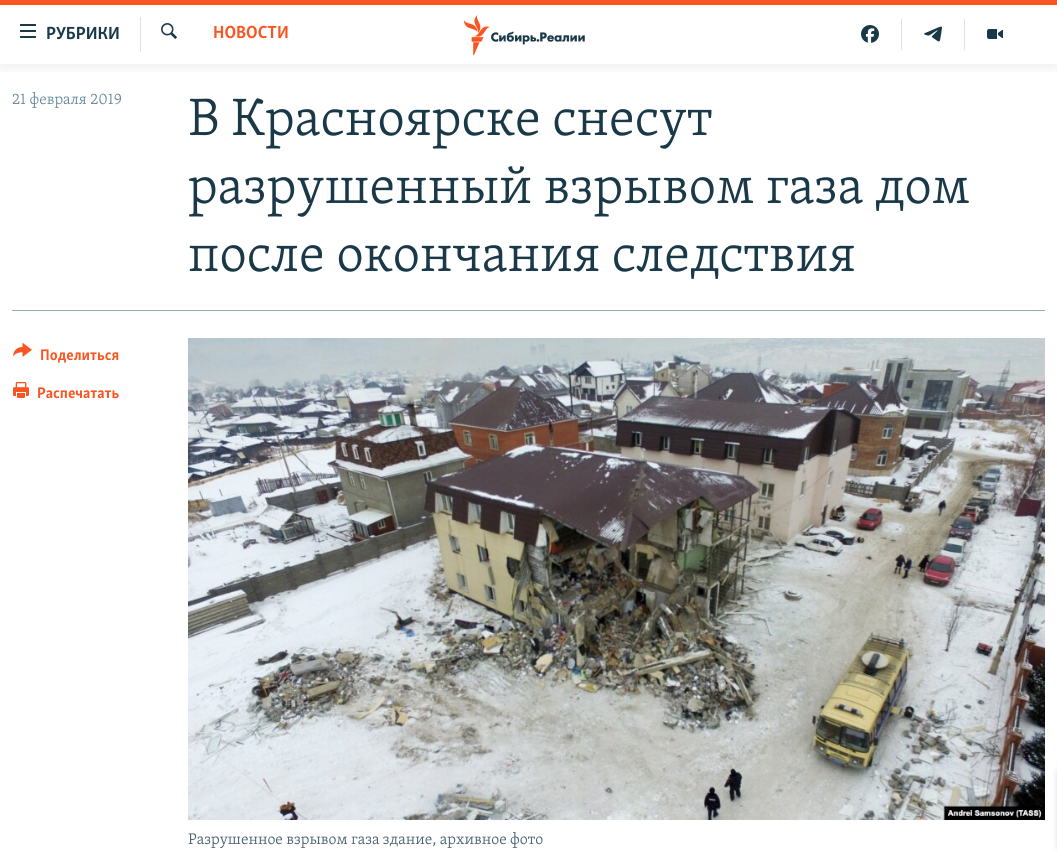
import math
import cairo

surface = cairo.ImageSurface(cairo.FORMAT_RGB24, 1057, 850)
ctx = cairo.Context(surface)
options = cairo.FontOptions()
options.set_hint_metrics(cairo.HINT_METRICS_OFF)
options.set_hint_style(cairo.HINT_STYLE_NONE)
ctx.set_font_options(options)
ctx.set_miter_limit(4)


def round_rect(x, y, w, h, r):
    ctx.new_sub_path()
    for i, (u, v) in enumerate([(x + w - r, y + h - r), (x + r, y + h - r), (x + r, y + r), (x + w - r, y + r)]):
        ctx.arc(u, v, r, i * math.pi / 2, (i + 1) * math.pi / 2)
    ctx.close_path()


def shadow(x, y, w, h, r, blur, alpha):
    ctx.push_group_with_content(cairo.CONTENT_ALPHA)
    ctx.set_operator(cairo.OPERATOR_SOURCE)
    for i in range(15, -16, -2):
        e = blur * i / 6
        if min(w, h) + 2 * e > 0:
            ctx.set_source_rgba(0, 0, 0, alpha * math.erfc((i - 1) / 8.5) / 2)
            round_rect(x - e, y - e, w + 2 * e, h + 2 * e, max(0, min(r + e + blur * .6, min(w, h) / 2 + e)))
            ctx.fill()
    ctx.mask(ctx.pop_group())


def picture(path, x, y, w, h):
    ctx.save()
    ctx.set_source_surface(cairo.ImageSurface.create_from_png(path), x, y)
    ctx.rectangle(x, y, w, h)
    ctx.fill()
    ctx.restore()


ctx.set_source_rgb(1, 1, 1)
ctx.paint()
ctx.save()
ctx.rectangle(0, 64, 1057, 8)
ctx.clip()
ctx.set_source_rgb(0, 0, 0)
shadow(0, 0, 1057, 64, 0, 10, 0.1)
ctx.restore()
ctx.set_source_rgb(0.98, 0.329, 0.125)
ctx.rectangle(0, 0, 1057, 5)
ctx.fill()
picture("img1.png", 20, 24, 16, 14)
ctx.select_font_face("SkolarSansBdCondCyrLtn", cairo.FONT_SLANT_NORMAL, cairo.FONT_WEIGHT_BOLD)
ctx.set_font_size(18)
ctx.set_source_rgb(0.102, 0.224, 0.282)
ctx.move_to(46, 39)
ctx.show_text("РУБРИКИ")
ctx.set_source_rgb(0.863, 0.894, 0.91)
ctx.rectangle(140, 17, 1, 35)
ctx.fill()
picture("img2.png", 161, 23, 16, 16)
ctx.set_source_rgb(0.98, 0.329, 0.125)
ctx.move_to(213, 38)
ctx.show_text("НОВОСТИ")
picture("img3.png", 464, 15, 121, 40)
ctx.set_source_rgb(0.863, 0.894, 0.91)
ctx.rectangle(901, 19, 1, 31)
ctx.fill()
picture("img4.png", 861, 25, 18, 18)
ctx.rectangle(964, 19, 1, 31)
ctx.fill()
picture("img5.png", 924, 26, 18, 16)
picture("img6.png", 987, 29, 16, 10)
ctx.select_font_face("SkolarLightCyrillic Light")
ctx.set_font_size(15.75)
ctx.set_source_rgb(0.404, 0.541, 0.608)
ctx.move_to(12, 104)
ctx.show_text("21 февраля 2019")
ctx.set_font_size(54)
ctx.set_source_rgb(0.102, 0.224, 0.282)
ctx.move_to(188, 135)
ctx.show_text("В Красноярске снесут")
ctx.move_to(188, 203)
ctx.show_text("разрушенный взрывом газа дом")
ctx.move_to(188, 271)
ctx.show_text("после окончания следствия")
ctx.set_source_rgb(0.584, 0.678, 0.725)
ctx.rectangle(12, 310, 1033, 1)
ctx.fill()
picture("img7.png", 13, 342, 19, 15)
ctx.select_font_face("SkolarSansBdCondCyrLtn", cairo.FONT_SLANT_NORMAL, cairo.FONT_WEIGHT_BOLD)
ctx.set_font_size(15.75)
ctx.set_source_rgb(0.98, 0.329, 0.125)
ctx.move_to(40, 360)
ctx.show_text("Поделиться")
picture("img8.png", 13, 382, 16, 16)
ctx.move_to(37, 398)
ctx.show_text("Распечатать")
picture("img9.png", 188, 338, 857, 482)
ctx.select_font_face("SkolarLightCyrillic Light")
ctx.set_source_rgb(0.282, 0.38, 0.427)
ctx.move_to(188, 844)
ctx.show_text("Разрушенное взрывом газа здание, архивное фото")
ctx.set_source_rgb(0, 0, 0)
shadow(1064, 769, 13, 81, 5, 5, 0.85)
surface.write_to_png("page.png")
